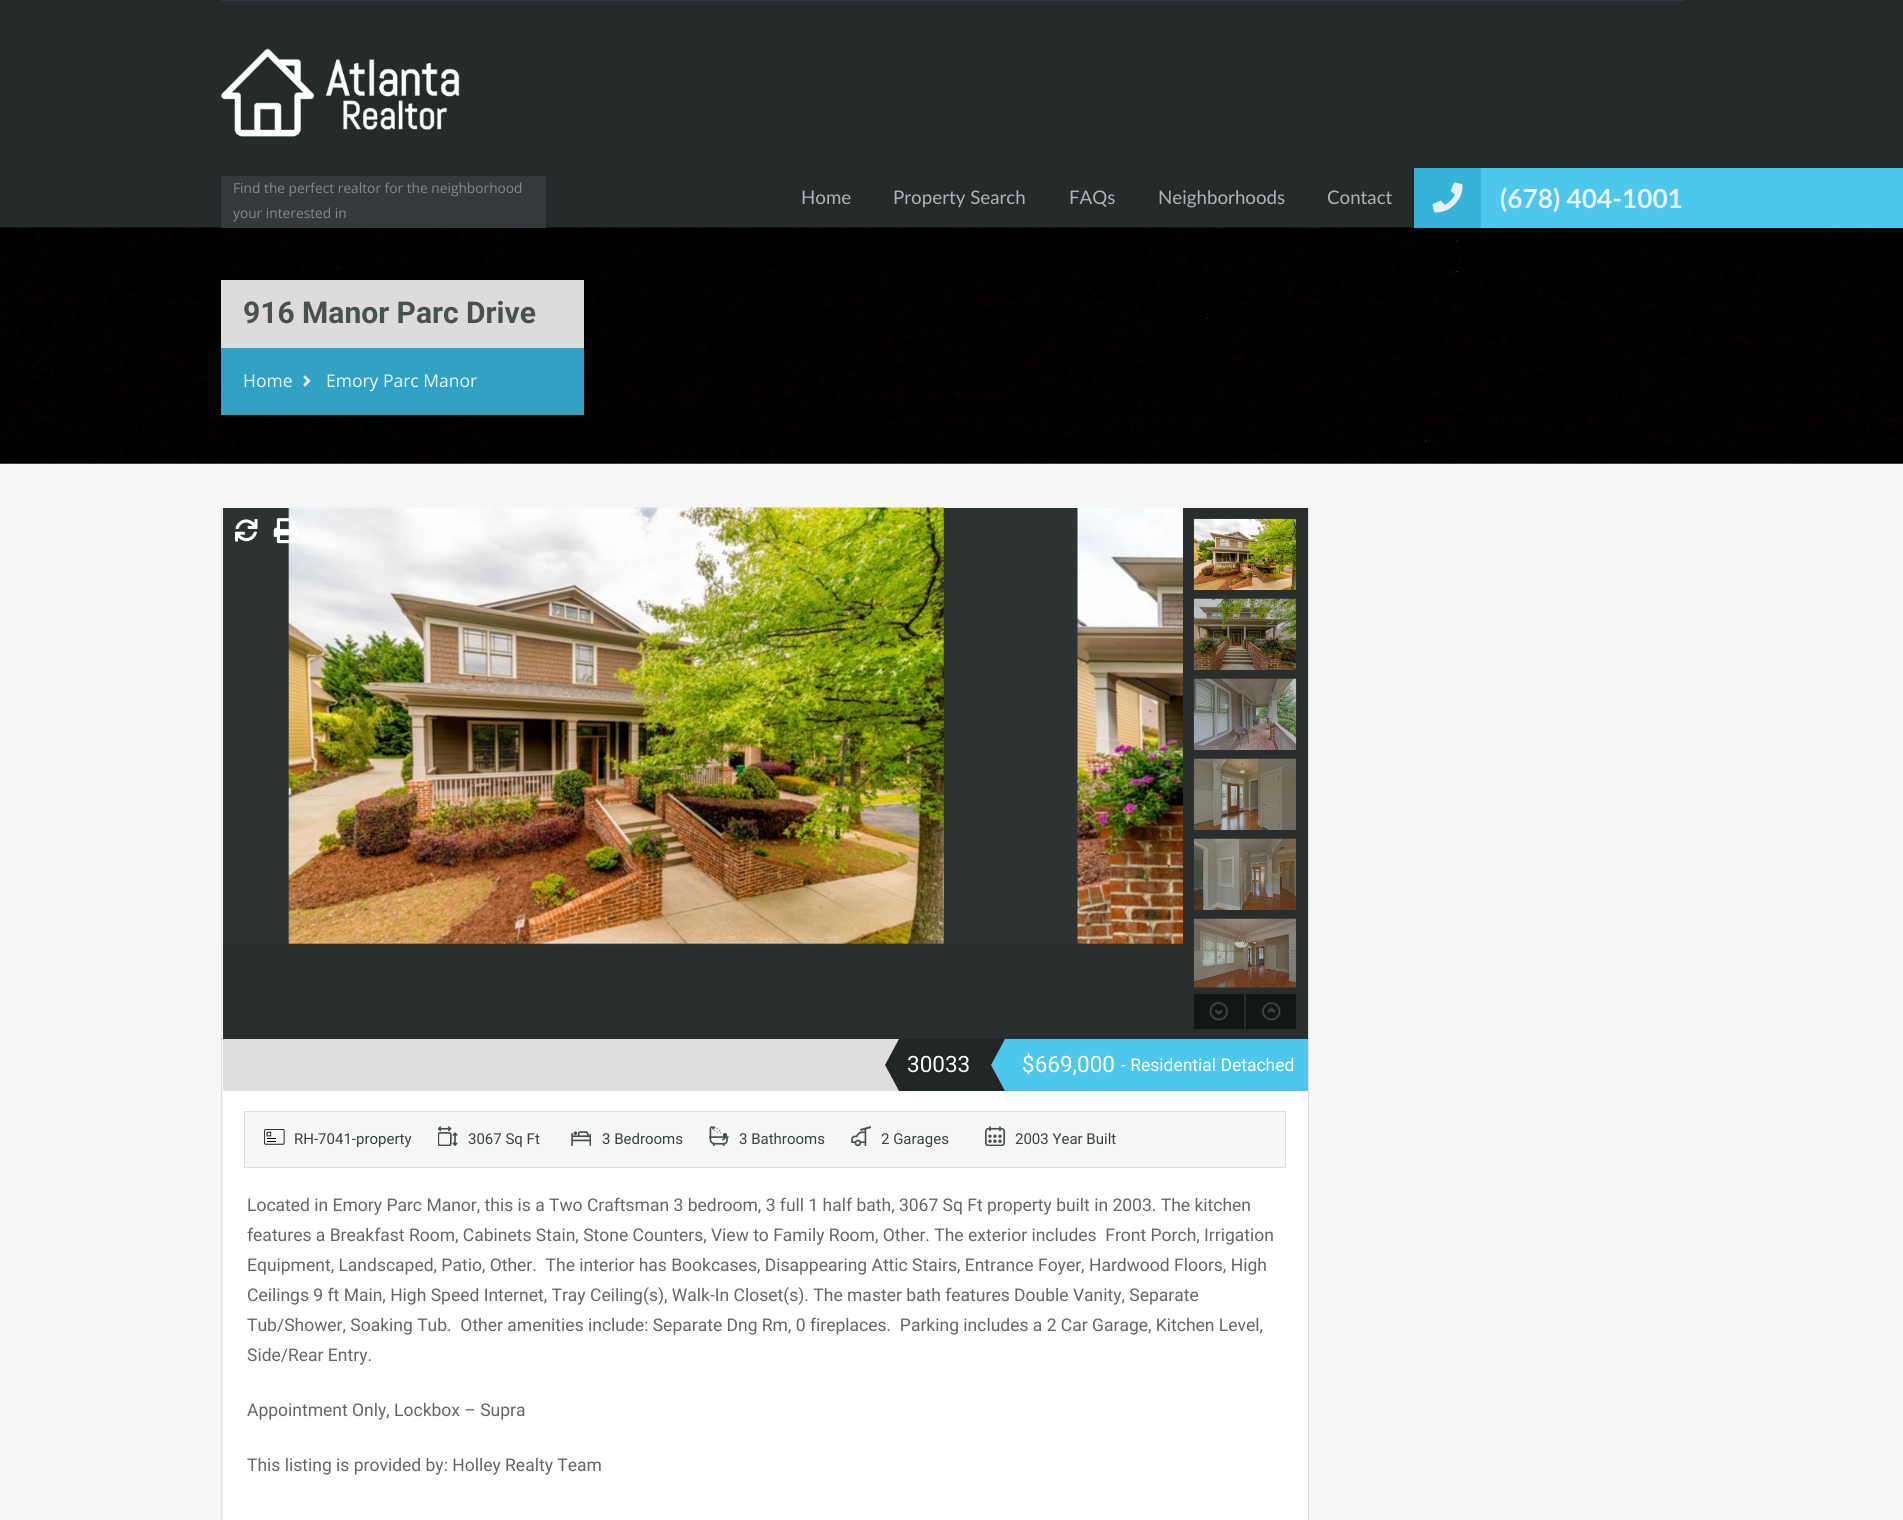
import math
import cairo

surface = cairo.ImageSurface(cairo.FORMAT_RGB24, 1903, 1520)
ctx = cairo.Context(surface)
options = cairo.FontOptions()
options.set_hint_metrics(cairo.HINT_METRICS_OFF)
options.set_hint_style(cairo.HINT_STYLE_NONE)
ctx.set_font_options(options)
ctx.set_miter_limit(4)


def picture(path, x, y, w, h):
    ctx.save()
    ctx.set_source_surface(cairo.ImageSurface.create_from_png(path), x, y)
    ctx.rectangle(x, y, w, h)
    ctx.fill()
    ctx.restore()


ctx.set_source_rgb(0.961, 0.961, 0.961)
ctx.paint()
ctx.set_source_rgb(0.145, 0.165, 0.169)
ctx.rectangle(0, 0, 1903, 228)
ctx.fill()
ctx.set_source_rgb(0.204, 0.227, 0.231)
ctx.rectangle(221, 0, 1463, 1)
ctx.fill()
picture("img1.png", 221, 48, 239, 89)
picture("img3.png", 0, 227, 1903, 237)
ctx.rectangle(221, 176, 325, 52)
ctx.fill()
ctx.select_font_face("Open Sans")
ctx.set_font_size(13.75)
ctx.set_source_rgb(0.533, 0.533, 0.533)
ctx.move_to(233, 193)
ctx.show_text("Find the perfect realtor for the neighborhood")
ctx.move_to(233, 218)
ctx.show_text("your interested in")
ctx.select_font_face("Lato")
ctx.set_font_size(18.75)
ctx.set_source_rgb(0.686, 0.706, 0.71)
ctx.move_to(801, 204)
ctx.show_text("Home")
ctx.move_to(893, 204)
ctx.show_text("Property Search")
ctx.move_to(1069, 204)
ctx.show_text("FAQs")
ctx.move_to(1158, 204)
ctx.show_text("Neighborhoods")
ctx.move_to(1327, 204)
ctx.show_text("Contact")
ctx.set_source_rgb(0.302, 0.78, 0.925)
ctx.rectangle(1481, 168, 422, 60)
ctx.fill()
ctx.set_source_rgb(0.216, 0.702, 0.851)
ctx.rectangle(1414, 168, 67, 60)
ctx.fill()
picture("img2.png", 1432, 182, 31, 31)
ctx.select_font_face("Lato", cairo.FONT_SLANT_NORMAL, cairo.FONT_WEIGHT_BOLD)
ctx.set_font_size(26.25)
ctx.set_source_rgb(0.906, 0.937, 0.969)
ctx.move_to(1500, 208)
ctx.show_text("(678) 404-1001")
ctx.set_source_rgba(0.961, 0.957, 0.953, 0.9)
ctx.rectangle(221, 280, 363, 68)
ctx.fill()
ctx.select_font_face("Roboto", cairo.FONT_SLANT_NORMAL, cairo.FONT_WEIGHT_BOLD)
ctx.set_font_size(30)
ctx.set_source_rgb(0.286, 0.314, 0.314)
ctx.move_to(243, 323)
ctx.show_text("916 Manor Parc Drive")
ctx.set_source_rgba(0.216, 0.702, 0.851, 0.9)
ctx.rectangle(221, 348, 363, 67)
ctx.fill()
ctx.select_font_face("Open Sans")
ctx.set_font_size(17.5)
ctx.set_source_rgb(0.918, 0.965, 0.976)
ctx.move_to(243, 387)
ctx.show_text("Home")
picture("img4.png", 303, 375, 8, 12)
ctx.move_to(326, 387)
ctx.show_text("Emory Parc Manor")
ctx.set_source_rgb(0.871, 0.871, 0.871)
ctx.rectangle(1308, 508, 1, 1012)
ctx.fill()
ctx.rectangle(221, 508, 1, 1012)
ctx.fill()
ctx.set_source_rgb(1, 1, 1)
ctx.rectangle(223, 1091, 1085, 429)
ctx.fill()
ctx.set_source_rgb(0.161, 0.176, 0.176)
ctx.rectangle(223, 508, 1085, 531)
ctx.fill()
ctx.set_source_rgb(0.176, 0.2, 0.2)
ctx.rectangle(223, 508, 960, 436)
ctx.fill()
picture("img5.png", 288, 507, 656, 438)
picture("img6.png", 1077, 507, 106, 438)
picture("img7.png", 1193, 518, 104, 72)
picture("img8.png", 1193, 598, 104, 72)
picture("img9.png", 1193, 678, 104, 72)
picture("img10.png", 1193, 758, 104, 72)
picture("img11.png", 1193, 838, 104, 72)
picture("img12.png", 1193, 918, 104, 70)
ctx.set_source_rgb(0.078, 0.086, 0.086)
ctx.rectangle(1194, 994, 50, 35)
ctx.fill()
picture("img13.png", 1209, 1001, 20, 20)
ctx.rectangle(1246, 994, 50, 35)
ctx.fill()
picture("img14.png", 1261, 1001, 20, 20)
picture("img15.png", 235, 519, 23, 23)
picture("img16.png", 273, 518, 26, 26)
ctx.set_source_rgb(0.871, 0.871, 0.871)
ctx.rectangle(223, 1039, 676, 52)
ctx.fill()
ctx.set_source_rgb(0.302, 0.78, 0.925)
ctx.rectangle(1005, 1039, 303, 52)
ctx.fill()
ctx.set_source_rgb(0.129, 0.153, 0.153)
ctx.rectangle(899, 1039, 106, 52)
ctx.fill()
ctx.new_path()
ctx.move_to(885, 1065)
ctx.line_to(899, 1039)
ctx.line_to(899, 1091)
ctx.close_path()
ctx.fill()
ctx.select_font_face("Roboto")
ctx.set_font_size(22.5)
ctx.set_source_rgb(1, 1, 1)
ctx.move_to(907, 1072)
ctx.show_text("30033")
ctx.set_source_rgb(0.302, 0.78, 0.925)
ctx.new_path()
ctx.move_to(991, 1065)
ctx.line_to(1005, 1039)
ctx.line_to(1005, 1091)
ctx.close_path()
ctx.fill()
ctx.set_source_rgb(1, 1, 1)
ctx.move_to(1022, 1072)
ctx.show_text("$669,000")
ctx.set_font_size(17.5)
ctx.move_to(1121, 1071)
ctx.show_text("- Residential Detached")
ctx.set_source_rgb(0.961, 0.961, 0.961)
ctx.rectangle(244.5, 1111.5, 1041, 56)
ctx.fill_preserve()
ctx.set_source_rgb(0.871, 0.871, 0.871)
ctx.set_line_width(1)
ctx.stroke()
picture("img17.png", 264, 1129, 21, 16)
ctx.set_font_size(15)
ctx.set_source_rgb(0.224, 0.251, 0.255)
ctx.move_to(294, 1144)
ctx.show_text("RH-7041-property")
picture("img18.png", 438, 1126, 20, 20)
ctx.move_to(468, 1144)
ctx.show_text("3067 Sq Ft")
picture("img19.png", 571, 1131, 20, 15)
ctx.move_to(602, 1144)
ctx.show_text("3 Bedrooms")
picture("img20.png", 709, 1126, 20, 20)
ctx.move_to(739, 1144)
ctx.show_text("3 Bathrooms")
picture("img21.png", 851, 1126, 20, 20)
ctx.move_to(881, 1144)
ctx.show_text("2 Garages")
picture("img22.png", 985, 1126, 20, 20)
ctx.move_to(1015, 1144)
ctx.show_text("2003 Year Built")
ctx.set_font_size(17.5)
ctx.set_source_rgb(0.4, 0.4, 0.4)
ctx.move_to(247, 1211)
ctx.show_text("Located in Emory Parc Manor, this is a Two Craftsman 3 bedroom, 3 full 1 half bath, 3067 Sq Ft property built in 2003. The kitchen")
ctx.move_to(247, 1241)
ctx.show_text("features a Breakfast Room, Cabinets Stain, Stone Counters, View to Family Room, Other. The exterior includes  Front Porch, Irrigation")
ctx.move_to(247, 1271)
ctx.show_text("Equipment, Landscaped, Patio, Other.  The interior has Bookcases, Disappearing Attic Stairs, Entrance Foyer, Hardwood Floors, High")
ctx.move_to(247, 1301)
ctx.show_text("Ceilings 9 ft Main, High Speed Internet, Tray Ceiling(s), Walk-In Closet(s). The master bath features Double Vanity, Separate")
ctx.move_to(247, 1331)
ctx.show_text("Tub/Shower, Soaking Tub.  Other amenities include: Separate Dng Rm, 0 fireplaces.  Parking includes a 2 Car Garage, Kitchen Level,")
ctx.move_to(247, 1361)
ctx.show_text("Side/Rear Entry.")
ctx.move_to(247, 1416)
ctx.show_text("Appointment Only, Lockbox – Supra")
ctx.move_to(247, 1471)
ctx.show_text("This listing is provided by: Holley Realty Team")
surface.write_to_png("page.png")
